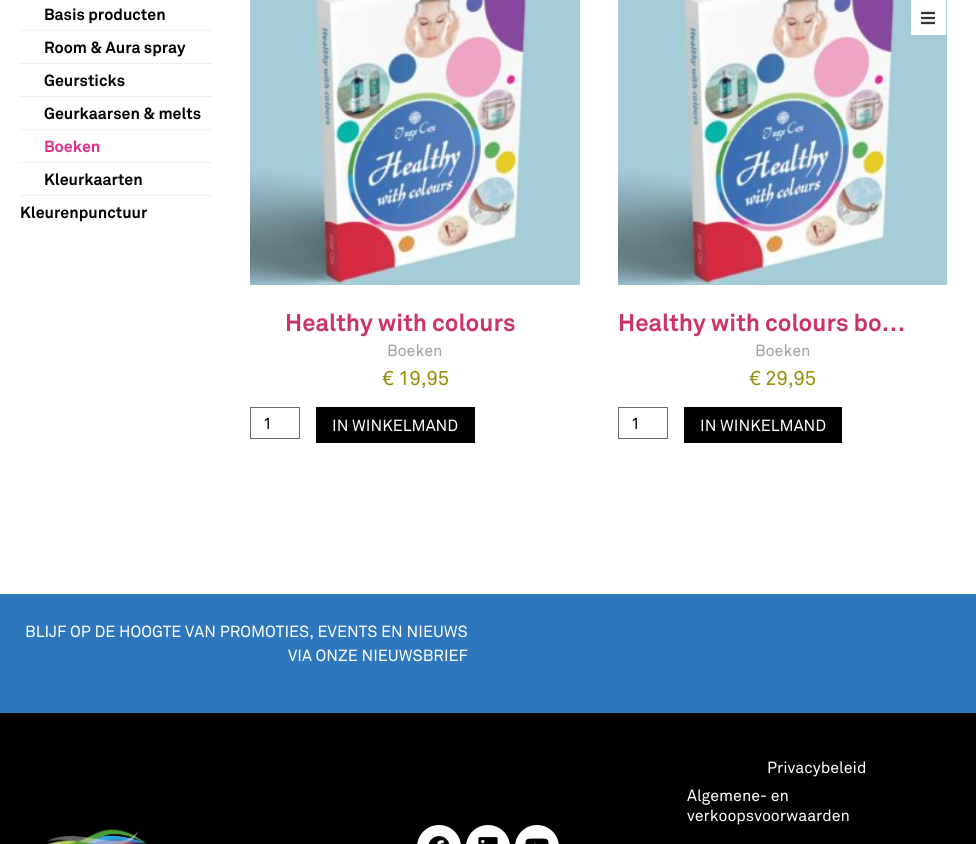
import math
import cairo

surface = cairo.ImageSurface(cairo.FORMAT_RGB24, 976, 844)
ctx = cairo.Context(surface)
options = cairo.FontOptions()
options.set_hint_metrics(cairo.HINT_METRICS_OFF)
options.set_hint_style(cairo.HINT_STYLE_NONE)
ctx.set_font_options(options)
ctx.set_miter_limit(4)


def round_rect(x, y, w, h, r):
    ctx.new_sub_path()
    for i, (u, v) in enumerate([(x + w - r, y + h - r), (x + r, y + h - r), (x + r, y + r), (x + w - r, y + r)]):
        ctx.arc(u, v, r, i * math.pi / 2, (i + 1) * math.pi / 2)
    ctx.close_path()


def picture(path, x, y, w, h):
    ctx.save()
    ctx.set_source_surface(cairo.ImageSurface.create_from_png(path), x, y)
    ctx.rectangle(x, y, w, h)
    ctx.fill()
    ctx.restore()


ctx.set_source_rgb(1, 1, 1)
ctx.paint()
ctx.select_font_face("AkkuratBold", cairo.FONT_SLANT_NORMAL, cairo.FONT_WEIGHT_BOLD)
ctx.set_font_size(16)
ctx.set_source_rgb(0, 0, 0)
ctx.move_to(44, 20)
ctx.show_text("Basis producten")
ctx.new_path()
ctx.move_to(20, 30.5)
ctx.line_to(211, 30.5)
ctx.set_source_rgb(0.867, 0.867, 0.867)
ctx.set_line_width(1)
ctx.set_dash([1, 1])
ctx.stroke()
ctx.set_source_rgb(0, 0, 0)
ctx.move_to(44, 53)
ctx.show_text("Room & Aura spray")
ctx.new_path()
ctx.move_to(20, 63.5)
ctx.line_to(211, 63.5)
ctx.set_source_rgb(0.867, 0.867, 0.867)
ctx.stroke()
ctx.set_source_rgb(0, 0, 0)
ctx.move_to(44, 86)
ctx.show_text("Geursticks")
ctx.new_path()
ctx.move_to(20, 96.5)
ctx.line_to(211, 96.5)
ctx.set_source_rgb(0.867, 0.867, 0.867)
ctx.stroke()
ctx.set_source_rgb(0, 0, 0)
ctx.move_to(44, 119)
ctx.show_text("Geurkaarsen & melts")
ctx.new_path()
ctx.move_to(20, 129.5)
ctx.line_to(211, 129.5)
ctx.set_source_rgb(0.867, 0.867, 0.867)
ctx.stroke()
ctx.set_source_rgb(0.882, 0.176, 0.533)
ctx.move_to(44, 152)
ctx.show_text("Boeken")
ctx.new_path()
ctx.move_to(20, 162.5)
ctx.line_to(211, 162.5)
ctx.set_source_rgb(0.867, 0.867, 0.867)
ctx.stroke()
ctx.set_source_rgb(0, 0, 0)
ctx.move_to(44, 185)
ctx.show_text("Kleurkaarten")
ctx.new_path()
ctx.move_to(20, 195.5)
ctx.line_to(211, 195.5)
ctx.set_source_rgb(0.867, 0.867, 0.867)
ctx.stroke()
ctx.set_source_rgb(0, 0, 0)
ctx.move_to(20, 218)
ctx.show_text("Kleurenpunctuur")
picture("img1.png", 250, 0, 330, 285)
ctx.set_font_size(24)
ctx.set_source_rgb(0.8, 0.2, 0.4)
ctx.move_to(285, 331)
ctx.show_text("Healthy with colours")
ctx.select_font_face("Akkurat")
ctx.set_font_size(16)
ctx.set_source_rgb(0.62, 0.624, 0.627)
ctx.move_to(387, 356)
ctx.show_text("Boeken")
ctx.set_font_size(20)
ctx.set_source_rgb(0.584, 0.557, 0.035)
ctx.move_to(382, 385)
ctx.show_text("€ 19,95")
ctx.rectangle(250.5, 407.5, 49, 31)
ctx.set_source_rgb(0.4, 0.4, 0.4)
ctx.set_dash([])
ctx.stroke()
ctx.set_font_size(16)
ctx.set_source_rgb(0, 0, 0)
ctx.move_to(263, 429)
ctx.show_text("1")
ctx.rectangle(316, 407, 159, 36)
ctx.fill()
ctx.set_source_rgb(1, 1, 1)
ctx.move_to(332, 431)
ctx.show_text("IN WINKELMAND")
picture("img2.png", 618, 0, 329, 285)
ctx.select_font_face("AkkuratBold", cairo.FONT_SLANT_NORMAL, cairo.FONT_WEIGHT_BOLD)
ctx.set_font_size(24)
ctx.set_source_rgb(0.8, 0.2, 0.4)
ctx.move_to(618, 331)
ctx.show_text("Healthy with colours bo…")
ctx.select_font_face("Akkurat")
ctx.set_font_size(16)
ctx.set_source_rgb(0.62, 0.624, 0.627)
ctx.move_to(755, 356)
ctx.show_text("Boeken")
ctx.set_font_size(20)
ctx.set_source_rgb(0.584, 0.557, 0.035)
ctx.move_to(749, 385)
ctx.show_text("€ 29,95")
ctx.rectangle(618.5, 407.5, 49, 31)
ctx.set_source_rgb(0.4, 0.4, 0.4)
ctx.stroke()
ctx.set_font_size(16)
ctx.set_source_rgb(0, 0, 0)
ctx.move_to(631, 429)
ctx.show_text("1")
ctx.rectangle(684, 407, 158, 36)
ctx.fill()
ctx.set_source_rgb(1, 1, 1)
ctx.move_to(700, 431)
ctx.show_text("IN WINKELMAND")
ctx.rectangle(911, 0, 35, 35)
ctx.fill()
picture("img3.png", 921, 11, 14, 14)
ctx.set_source_rgb(0.184, 0.467, 0.737)
ctx.rectangle(0, 594, 976, 119)
ctx.fill()
ctx.set_source_rgb(1, 1, 1)
ctx.move_to(25, 637)
ctx.show_text("BLIJF OP DE HOOGTE VAN PROMOTIES, EVENTS EN NIEUWS")
ctx.move_to(288, 661)
ctx.show_text("VIA ONZE NIEUWSBRIEF")
ctx.set_source_rgb(0, 0, 0)
ctx.rectangle(0, 713, 976, 131)
ctx.fill()
ctx.set_source_rgb(1, 1, 1)
ctx.move_to(767, 773)
ctx.show_text("Privacybeleid")
ctx.move_to(687, 801)
ctx.show_text("Algemene- en")
ctx.move_to(687, 821)
ctx.show_text("verkoopsvoorwaarden")
picture("img4.png", 47, 829, 100, 15)
round_rect(417, 825, 44, 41, 22)
ctx.fill()
picture("img5.png", 428, 836, 22, 8)
round_rect(466, 825, 44, 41, 22)
ctx.fill()
picture("img6.png", 478, 837, 20, 7)
round_rect(515, 825, 44, 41, 22)
ctx.fill()
picture("img7.png", 525, 838, 24, 6)
surface.write_to_png("page.png")
